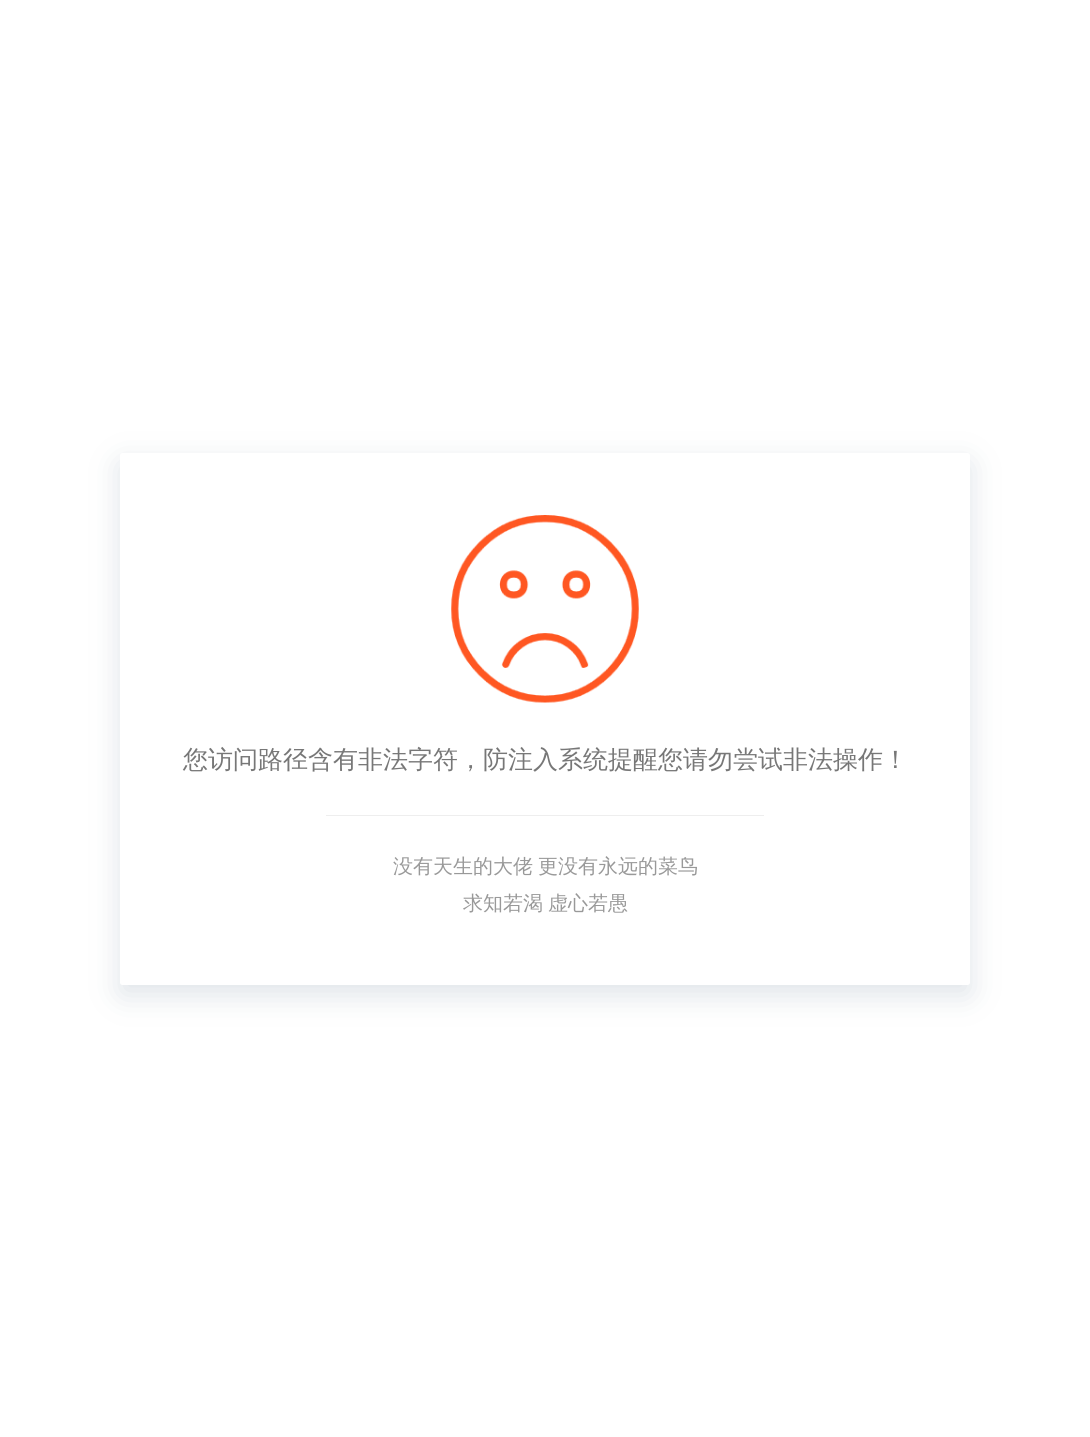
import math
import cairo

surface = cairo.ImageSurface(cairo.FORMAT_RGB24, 1090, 1437)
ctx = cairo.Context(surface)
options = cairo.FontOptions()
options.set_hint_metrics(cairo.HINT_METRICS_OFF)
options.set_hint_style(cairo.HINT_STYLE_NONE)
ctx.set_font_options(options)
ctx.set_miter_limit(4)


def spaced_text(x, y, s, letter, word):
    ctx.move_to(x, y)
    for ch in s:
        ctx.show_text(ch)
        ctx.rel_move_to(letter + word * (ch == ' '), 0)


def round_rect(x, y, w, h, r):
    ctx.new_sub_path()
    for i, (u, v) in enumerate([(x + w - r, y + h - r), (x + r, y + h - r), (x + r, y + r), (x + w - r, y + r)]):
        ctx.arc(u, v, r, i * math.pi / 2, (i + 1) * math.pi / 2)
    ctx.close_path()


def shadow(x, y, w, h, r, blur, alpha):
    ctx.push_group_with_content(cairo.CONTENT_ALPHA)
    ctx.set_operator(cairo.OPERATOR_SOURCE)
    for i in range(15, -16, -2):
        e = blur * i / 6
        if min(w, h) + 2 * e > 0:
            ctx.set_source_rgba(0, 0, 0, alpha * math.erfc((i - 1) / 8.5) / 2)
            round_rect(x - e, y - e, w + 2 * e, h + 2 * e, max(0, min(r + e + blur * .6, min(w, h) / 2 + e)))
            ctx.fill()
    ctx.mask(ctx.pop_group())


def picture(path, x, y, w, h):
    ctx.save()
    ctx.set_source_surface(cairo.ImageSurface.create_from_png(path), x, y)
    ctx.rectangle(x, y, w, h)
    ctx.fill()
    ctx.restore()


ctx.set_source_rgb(1, 1, 1)
ctx.paint()
ctx.set_source_rgb(0.639, 0.694, 0.749)
shadow(120, 463, 850, 532, 2.5, 15, 0.35)
ctx.set_source_rgb(1, 1, 1)
round_rect(120, 453, 850, 532, 2.5)
ctx.fill()
picture("img1.png", 451, 515, 188, 188)
ctx.select_font_face("WenQuanYi Zen Hei Medium")
ctx.set_font_size(25)
ctx.set_source_rgb(0.467, 0.467, 0.467)
ctx.move_to(183, 768)
ctx.show_text("您访问路径含有非法字符，防注入系统提醒您请勿尝试非法操作！")
ctx.set_source_rgb(0.933, 0.933, 0.933)
ctx.rectangle(326, 815, 438, 1)
ctx.fill()
ctx.set_font_size(20)
ctx.set_source_rgb(0.6, 0.6, 0.6)
spaced_text(393, 873, "没有天生的大佬 更没有永远的菜鸟", 0, -1)
spaced_text(463, 910, "求知若渴 虚心若愚", 0, -1)
surface.write_to_png("page.png")
